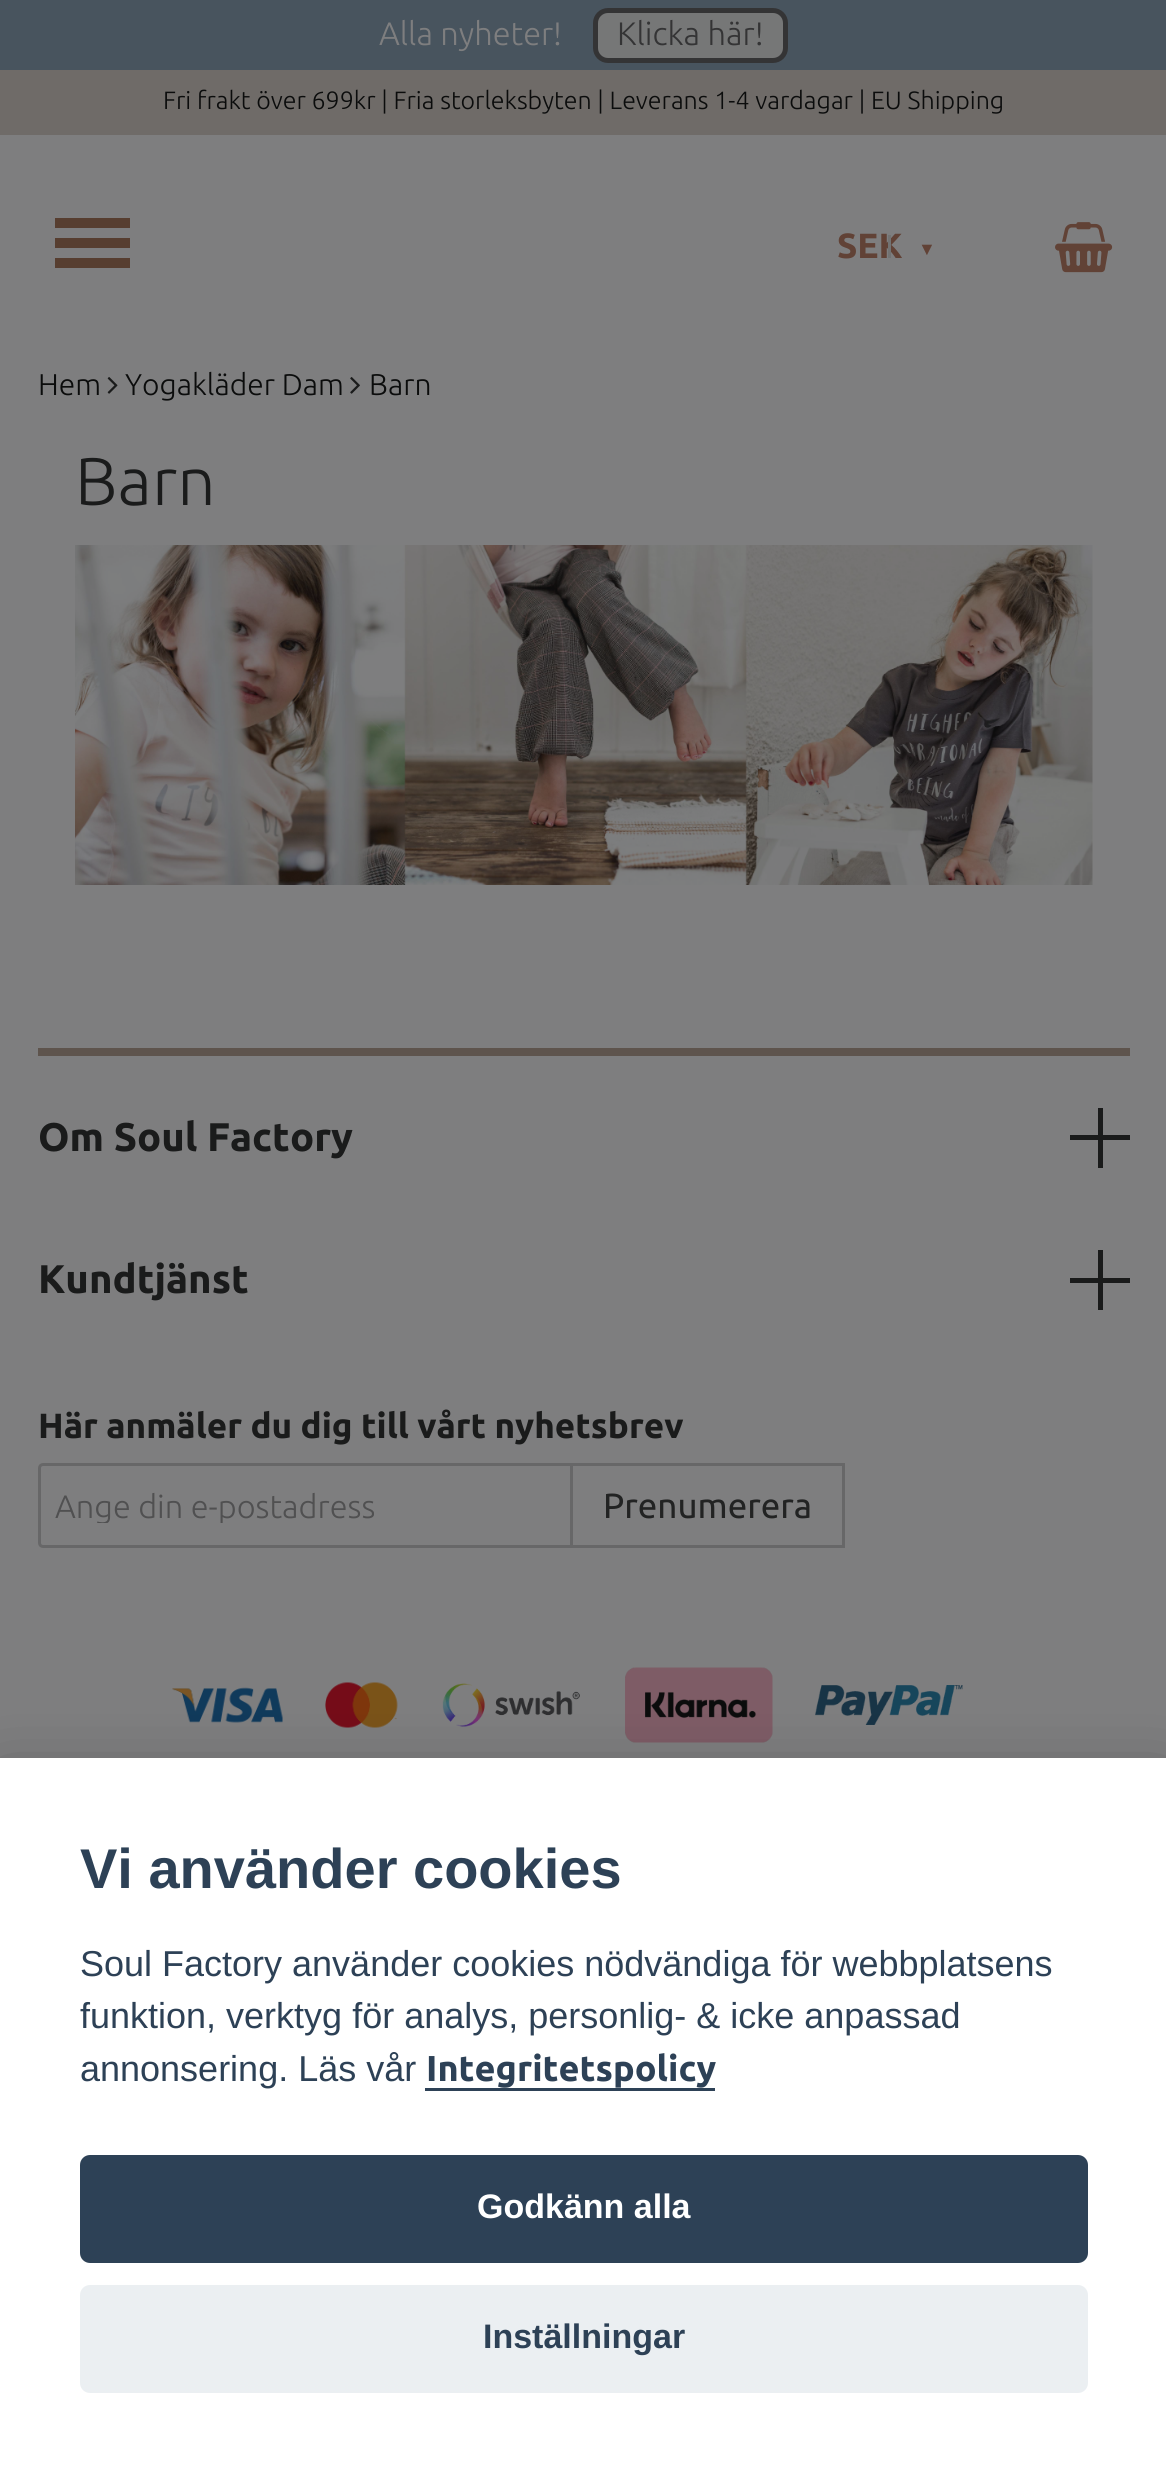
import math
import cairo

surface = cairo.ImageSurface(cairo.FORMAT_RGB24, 1166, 2471)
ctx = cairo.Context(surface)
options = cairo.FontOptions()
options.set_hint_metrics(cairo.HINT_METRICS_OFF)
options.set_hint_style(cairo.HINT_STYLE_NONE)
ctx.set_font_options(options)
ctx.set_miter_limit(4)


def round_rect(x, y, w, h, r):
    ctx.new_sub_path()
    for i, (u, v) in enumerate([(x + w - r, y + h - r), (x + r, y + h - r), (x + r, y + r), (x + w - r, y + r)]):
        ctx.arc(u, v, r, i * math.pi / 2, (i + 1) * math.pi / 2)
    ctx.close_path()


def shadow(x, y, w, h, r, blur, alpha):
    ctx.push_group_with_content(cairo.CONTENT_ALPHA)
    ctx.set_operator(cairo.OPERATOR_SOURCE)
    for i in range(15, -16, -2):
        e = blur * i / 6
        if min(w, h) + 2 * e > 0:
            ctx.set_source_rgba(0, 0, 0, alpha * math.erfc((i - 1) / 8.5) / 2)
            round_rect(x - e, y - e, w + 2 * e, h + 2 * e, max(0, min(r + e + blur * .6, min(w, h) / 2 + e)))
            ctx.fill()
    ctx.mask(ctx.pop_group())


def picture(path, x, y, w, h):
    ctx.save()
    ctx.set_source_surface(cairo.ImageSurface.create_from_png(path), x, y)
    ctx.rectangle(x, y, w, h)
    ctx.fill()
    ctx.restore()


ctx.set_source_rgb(0.494, 0.494, 0.498)
ctx.paint()
ctx.set_source_rgb(0.282, 0.329, 0.369)
ctx.rectangle(0, 0, 1166, 70)
ctx.fill()
ctx.select_font_face("Ubuntu Light")
ctx.set_font_size(32.5)
ctx.set_source_rgb(0.494, 0.494, 0.498)
ctx.move_to(379, 45)
ctx.show_text("Alla nyheter!")
ctx.set_source_rgb(0.463, 0.467, 0.467)
round_rect(595.5, 10.5, 190, 50, 12.5)
ctx.fill_preserve()
ctx.set_source_rgb(0.204, 0.204, 0.208)
ctx.set_line_width(5)
ctx.stroke()
ctx.move_to(617, 45)
ctx.show_text("Klicka här!")
ctx.set_source_rgb(0.435, 0.42, 0.408)
ctx.rectangle(0, 70, 1166, 65)
ctx.fill()
ctx.set_font_size(25)
ctx.set_source_rgb(0.043, 0.047, 0.047)
ctx.move_to(163, 109)
ctx.show_text("Fri frakt över 699kr | Fria storleksbyten | Leverans 1-4 vardagar | EU Shipping")
ctx.set_source_rgb(0.341, 0.243, 0.188)
ctx.rectangle(55, 238, 75, 10)
ctx.fill()
ctx.rectangle(55, 218, 75, 10)
ctx.fill()
ctx.rectangle(55, 258, 75, 10)
ctx.fill()
ctx.select_font_face("Ubuntu", cairo.FONT_SLANT_NORMAL, cairo.FONT_WEIGHT_BOLD)
ctx.set_font_size(35)
ctx.set_source_rgb(0.38, 0.259, 0.212)
ctx.move_to(837, 258)
ctx.show_text("SEK")
ctx.set_source_rgb(0.447, 0.451, 0.451)
ctx.rectangle(888, 235, 3, 23)
ctx.fill()
ctx.select_font_face("Liberation Sans", cairo.FONT_SLANT_NORMAL, cairo.FONT_WEIGHT_BOLD)
ctx.set_font_size(18)
ctx.set_source_rgb(0.38, 0.259, 0.212)
ctx.move_to(918, 255)
ctx.show_text("▼")
picture("img1.png", 1055, 222, 58, 51)
ctx.select_font_face("Ubuntu Light")
ctx.set_font_size(30)
ctx.set_source_rgb(0.043, 0.047, 0.047)
ctx.move_to(38, 395)
ctx.show_text("Hem")
picture("img2.png", 107, 377, 11, 17)
ctx.move_to(125, 395)
ctx.show_text("Yogakläder Dam")
picture("img3.png", 350, 377, 10, 17)
ctx.move_to(369, 395)
ctx.show_text("Barn")
ctx.set_font_size(67.5)
ctx.set_source_rgb(0.102, 0.106, 0.106)
ctx.move_to(75, 505)
ctx.show_text("Barn")
picture("img4.png", 75, 545, 1018, 340)
ctx.set_source_rgb(0.369, 0.329, 0.302)
ctx.rectangle(38, 1048, 1092, 8)
ctx.fill()
ctx.select_font_face("Ubuntu", cairo.FONT_SLANT_NORMAL, cairo.FONT_WEIGHT_BOLD)
ctx.set_font_size(40)
ctx.set_source_rgb(0.102, 0.106, 0.106)
ctx.move_to(38, 1151)
ctx.show_text("Om Soul Factory")
ctx.rectangle(1098, 1108, 5, 60)
ctx.fill()
ctx.rectangle(1070, 1135, 60, 5)
ctx.fill()
ctx.move_to(38, 1293)
ctx.show_text("Kundtjänst")
ctx.rectangle(1098, 1250, 5, 60)
ctx.fill()
ctx.rectangle(1070, 1278, 60, 5)
ctx.fill()
ctx.set_font_size(35)
ctx.move_to(38, 1438)
ctx.show_text("Här anmäler du dig till vårt nyhetsbrev")
ctx.new_path()
ctx.move_to(43, 1464.5)
ctx.line_to(571.5, 1464.5)
ctx.line_to(571.5, 1546.5)
ctx.line_to(43, 1546.5)
ctx.curve_to(41, 1546.5, 39.5, 1545, 39.5, 1543)
ctx.line_to(39.5, 1468)
ctx.curve_to(39.5, 1466, 41, 1464.5, 43, 1464.5)
ctx.close_path()
ctx.set_source_rgb(0.404, 0.404, 0.408)
ctx.set_line_width(3)
ctx.stroke()
ctx.save()
ctx.rectangle(55, 1488, 500, 35)
ctx.clip()
ctx.select_font_face("Ubuntu Light")
ctx.set_font_size(32.5)
ctx.set_source_rgb(0.314, 0.314, 0.318)
ctx.move_to(55, 1518)
ctx.show_text("Ange din e-postadress")
ctx.restore()
ctx.rectangle(571.5, 1464.5, 272, 82)
ctx.stroke()
ctx.select_font_face("Ubuntu")
ctx.set_source_rgb(0.133, 0.137, 0.137)
ctx.move_to(603, 1518)
ctx.show_text("Prenumerera")
picture("img5.png", 172, 1687, 111, 36)
picture("img6.png", 325, 1682, 73, 46)
picture("img7.png", 442, 1683, 138, 44)
picture("img8.png", 625, 1667, 148, 76)
picture("img9.png", 815, 1685, 148, 40)
ctx.set_source_rgb(0.008, 0.008, 0.012)
shadow(0, 1783, 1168, 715, 0, 37.5, 0.28)
ctx.set_source_rgb(1, 1, 1)
ctx.rectangle(0, 1758, 1166, 713)
ctx.fill()
ctx.select_font_face("Liberation Sans", cairo.FONT_SLANT_NORMAL, cairo.FONT_WEIGHT_BOLD)
ctx.set_font_size(56)
ctx.set_source_rgb(0.176, 0.255, 0.337)
ctx.move_to(80, 1888)
ctx.show_text("Vi använder cookies")
ctx.select_font_face("Liberation Sans")
ctx.set_font_size(36)
ctx.move_to(80, 1976)
ctx.show_text("Soul Factory använder cookies nödvändiga för webbplatsens")
ctx.move_to(80, 2028)
ctx.show_text("funktion, verktyg för analys, personlig- & icke anpassad")
ctx.move_to(80, 2081)
ctx.show_text("annonsering. Läs vår")
ctx.select_font_face("Ubuntu", cairo.FONT_SLANT_NORMAL, cairo.FONT_WEIGHT_BOLD)
ctx.move_to(426, 2081)
ctx.show_text("Integritetspolicy")
ctx.rectangle(425, 2088, 290, 3)
ctx.fill()
round_rect(80, 2155, 1008, 108, 10)
ctx.fill()
ctx.select_font_face("Liberation Sans", cairo.FONT_SLANT_NORMAL, cairo.FONT_WEIGHT_BOLD)
ctx.set_font_size(34)
ctx.set_source_rgb(1, 1, 1)
ctx.move_to(477, 2218)
ctx.show_text("Godkänn alla")
ctx.set_source_rgb(0.918, 0.937, 0.949)
round_rect(80, 2285, 1008, 108, 10)
ctx.fill()
ctx.set_source_rgb(0.176, 0.255, 0.337)
ctx.move_to(483, 2348)
ctx.show_text("Inställningar")
surface.write_to_png("page.png")
